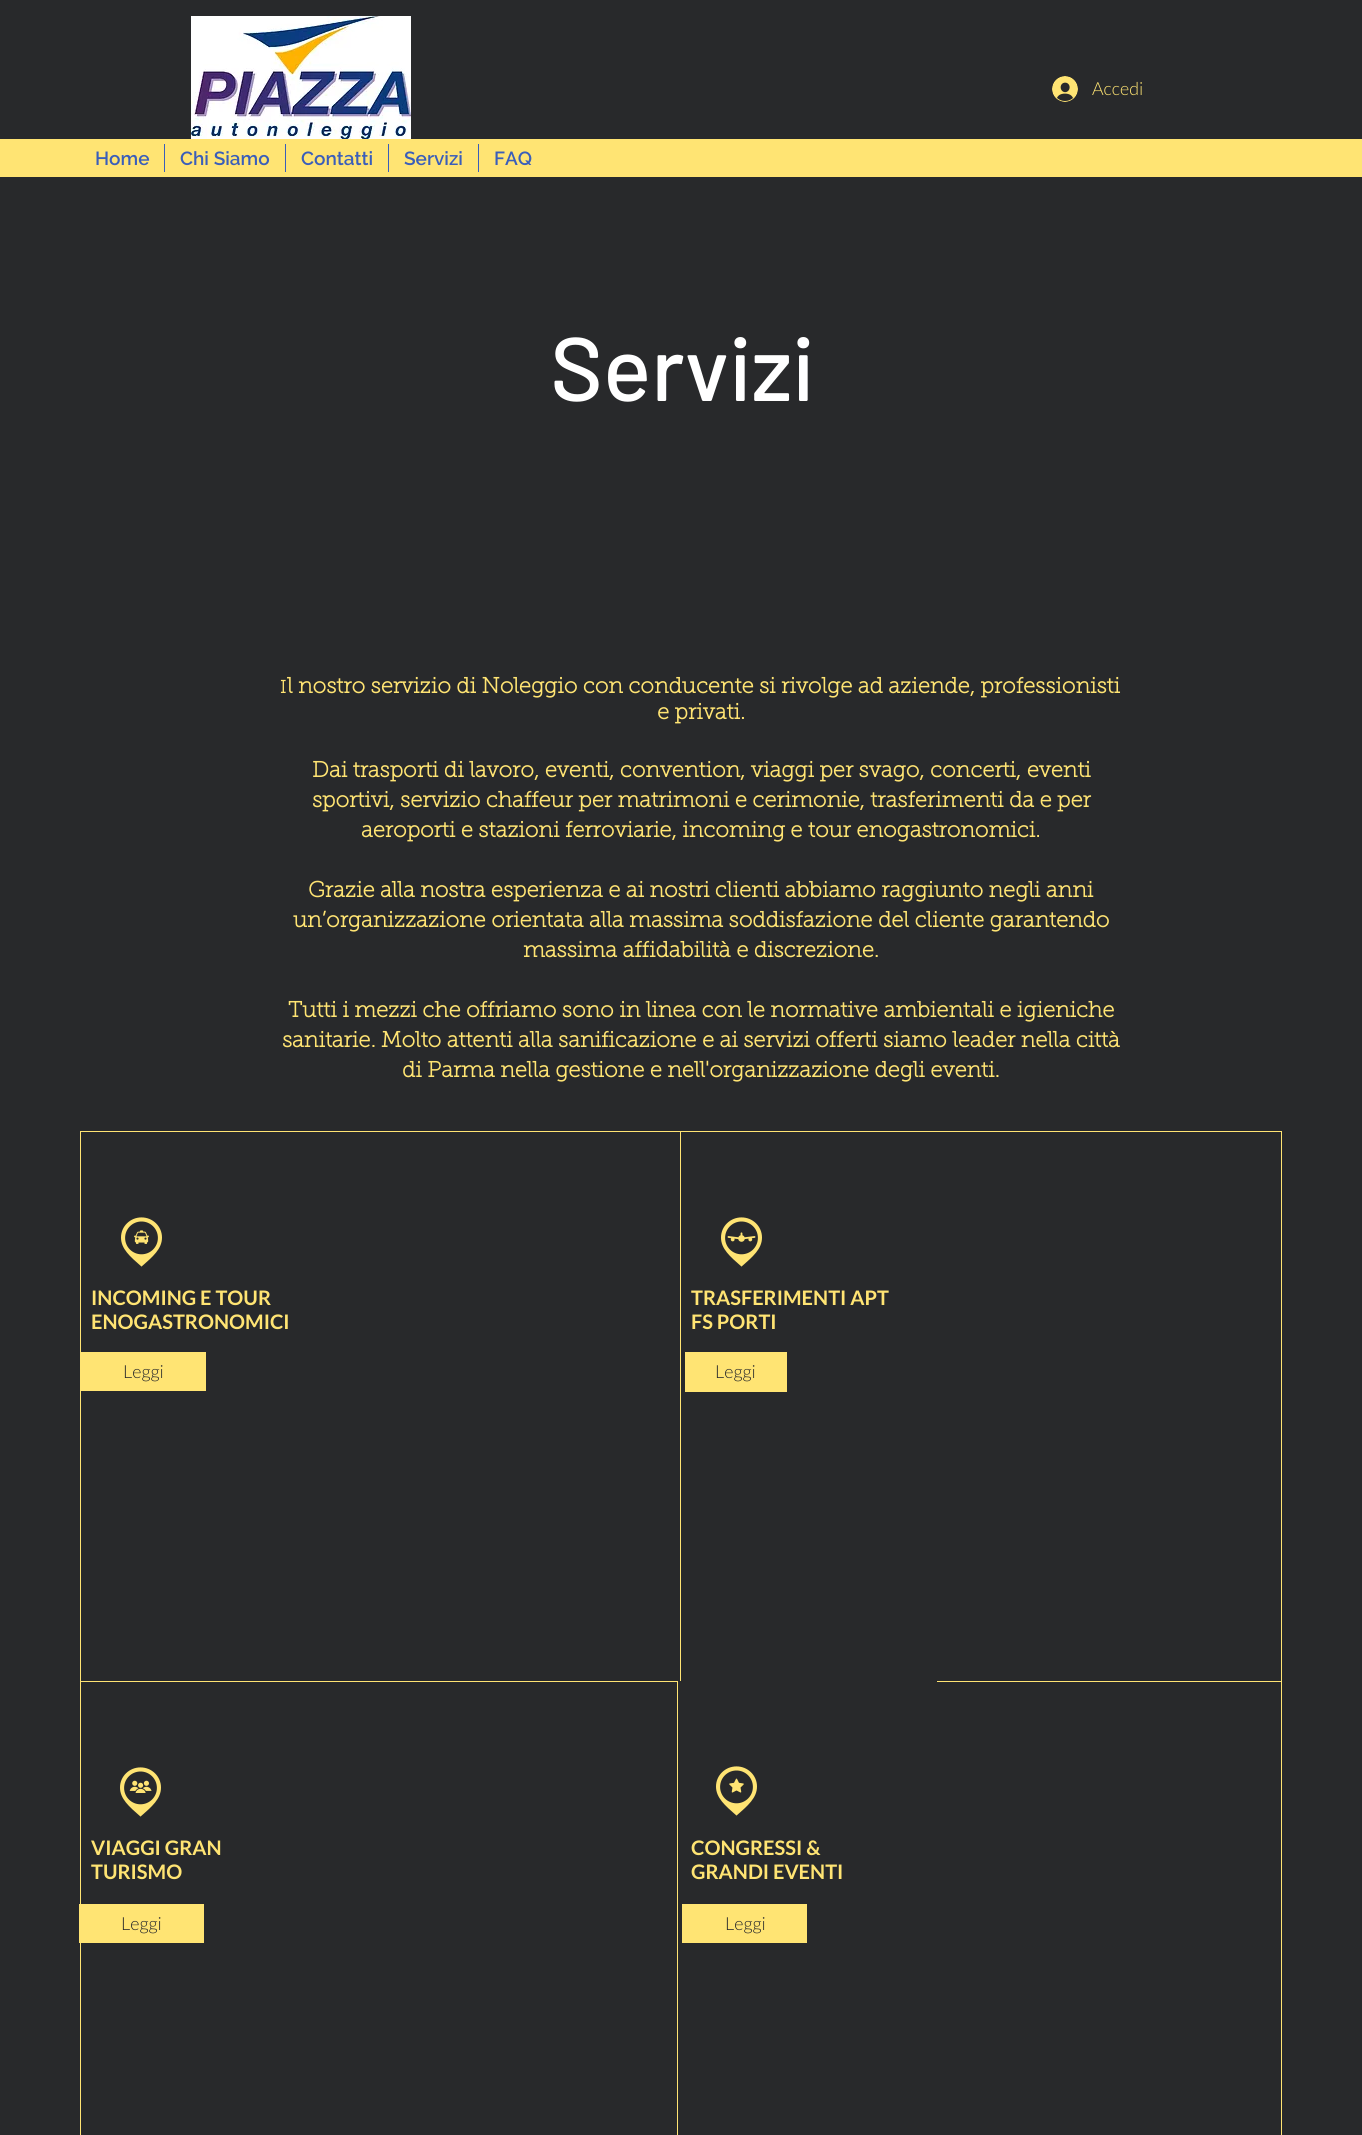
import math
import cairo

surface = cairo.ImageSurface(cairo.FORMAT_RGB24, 1362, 2135)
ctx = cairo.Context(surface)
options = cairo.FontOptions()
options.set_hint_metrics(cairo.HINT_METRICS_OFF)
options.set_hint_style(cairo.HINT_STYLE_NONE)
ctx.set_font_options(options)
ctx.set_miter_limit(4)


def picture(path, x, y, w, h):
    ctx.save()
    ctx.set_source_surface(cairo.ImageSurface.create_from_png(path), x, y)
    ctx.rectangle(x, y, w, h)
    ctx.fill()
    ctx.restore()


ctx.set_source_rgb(0.157, 0.161, 0.169)
ctx.paint()
picture("img1.png", 191, 16, 220, 123)
picture("img2.png", 1052, 76, 26, 26)
ctx.select_font_face("Lato Light")
ctx.set_font_size(18)
ctx.set_source_rgb(1, 0.894, 0.451)
ctx.move_to(1092, 95)
ctx.show_text("Accedi")
ctx.rectangle(0, 139, 1362, 38)
ctx.fill()
ctx.select_font_face("Raleway SemiBold")
ctx.set_font_size(19)
ctx.set_source_rgb(0.227, 0.369, 0.729)
ctx.move_to(95, 165)
ctx.show_text("Home")
ctx.rectangle(164, 144, 1, 28)
ctx.fill()
ctx.move_to(180, 165)
ctx.show_text("Chi Siamo")
ctx.rectangle(285, 144, 1, 28)
ctx.fill()
ctx.move_to(301, 165)
ctx.show_text("Contatti")
ctx.rectangle(388, 144, 1, 28)
ctx.fill()
ctx.move_to(404, 165)
ctx.show_text("Servizi")
ctx.rectangle(478, 144, 1, 28)
ctx.fill()
ctx.move_to(494, 165)
ctx.show_text("FAQ")
ctx.select_font_face("Barlow Medium")
ctx.set_font_size(90)
ctx.set_source_rgb(1, 1, 1)
ctx.move_to(550, 401)
ctx.show_text("Servizi")
ctx.select_font_face("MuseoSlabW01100", cairo.FONT_SLANT_NORMAL, cairo.FONT_WEIGHT_BOLD)
ctx.set_font_size(18)
ctx.set_source_rgb(1, 0.894, 0.451)
ctx.move_to(280, 693)
ctx.show_text("I")
ctx.set_font_size(22)
ctx.move_to(287, 693)
ctx.show_text("l nostro servizio di Noleggio con conducente si rivolge ad aziende, professionisti")
ctx.move_to(657, 719)
ctx.show_text("e privati.")
ctx.move_to(312, 777)
ctx.show_text("Dai trasporti di lavoro, eventi, convention, viaggi per svago, concerti, eventi")
ctx.move_to(312, 807)
ctx.show_text("sportivi, servizio chaffeur per matrimoni e cerimonie, trasferimenti da e per")
ctx.move_to(361, 837)
ctx.show_text("aeroporti e stazioni ferroviarie, incoming e tour enogastronomici.")
ctx.move_to(308, 897)
ctx.show_text("Grazie alla nostra esperienza e ai nostri clienti abbiamo raggiunto negli anni")
ctx.move_to(293, 927)
ctx.show_text("un’organizzazione orientata alla massima soddisfazione del cliente garantendo")
ctx.move_to(523, 957)
ctx.show_text("massima affidabilità e discrezione.")
ctx.move_to(288, 1017)
ctx.show_text("Tutti i mezzi che offriamo sono in linea con le normative ambientali e igieniche")
ctx.move_to(282, 1047)
ctx.show_text("sanitarie. Molto attenti alla sanificazione e ai servizi offerti siamo leader nella città")
ctx.move_to(402, 1077)
ctx.show_text("di Parma nella gestione e nell'organizzazione degli eventi.")
ctx.rectangle(80, 1131, 1202, 1004)
ctx.fill()
ctx.set_source_rgb(0.157, 0.161, 0.169)
ctx.rectangle(81, 1132, 599, 549)
ctx.fill()
picture("img3.png", 121, 1217, 41, 50)
ctx.select_font_face("Lato", cairo.FONT_SLANT_NORMAL, cairo.FONT_WEIGHT_BOLD)
ctx.set_font_size(20)
ctx.set_source_rgb(1, 0.894, 0.451)
ctx.move_to(91, 1305)
ctx.show_text("INCOMING E TOUR")
ctx.move_to(91, 1329)
ctx.show_text("ENOGASTRONOMICI")
ctx.rectangle(81, 1352, 125, 39)
ctx.fill()
ctx.select_font_face("Lato Light")
ctx.set_font_size(18)
ctx.set_source_rgb(0.157, 0.161, 0.169)
ctx.move_to(123, 1378)
ctx.show_text("Leggi")
ctx.rectangle(681, 1132, 600, 549)
ctx.fill()
picture("img4.png", 721, 1217, 41, 50)
ctx.select_font_face("Lato", cairo.FONT_SLANT_NORMAL, cairo.FONT_WEIGHT_BOLD)
ctx.set_font_size(20)
ctx.set_source_rgb(1, 0.894, 0.451)
ctx.move_to(691, 1305)
ctx.show_text("TRASFERIMENTI APT")
ctx.move_to(691, 1329)
ctx.show_text("FS PORTI")
ctx.rectangle(685, 1352, 102, 40)
ctx.fill()
ctx.select_font_face("Lato Light")
ctx.set_font_size(18)
ctx.set_source_rgb(0.157, 0.161, 0.169)
ctx.move_to(715, 1378)
ctx.show_text("Leggi")
ctx.rectangle(81, 1682, 596, 453)
ctx.fill()
picture("img5.png", 120, 1767, 41, 50)
ctx.select_font_face("Lato", cairo.FONT_SLANT_NORMAL, cairo.FONT_WEIGHT_BOLD)
ctx.set_font_size(20)
ctx.set_source_rgb(1, 0.894, 0.451)
ctx.move_to(91, 1855)
ctx.show_text("VIAGGI GRAN")
ctx.move_to(91, 1879)
ctx.show_text("TURISMO")
ctx.rectangle(79, 1904, 125, 39)
ctx.fill()
ctx.select_font_face("Lato Light")
ctx.set_font_size(18)
ctx.set_source_rgb(0.157, 0.161, 0.169)
ctx.move_to(121, 1930)
ctx.show_text("Leggi")
ctx.rectangle(678, 1682, 603, 453)
ctx.fill()
ctx.rectangle(678, 1681, 259, 1)
ctx.fill()
picture("img6.png", 716, 1766, 41, 50)
ctx.select_font_face("Lato", cairo.FONT_SLANT_NORMAL, cairo.FONT_WEIGHT_BOLD)
ctx.set_font_size(20)
ctx.set_source_rgb(1, 0.894, 0.451)
ctx.move_to(691, 1855)
ctx.show_text("CONGRESSI &")
ctx.move_to(691, 1879)
ctx.show_text("GRANDI EVENTI")
ctx.rectangle(682, 1904, 125, 39)
ctx.fill()
ctx.select_font_face("Lato Light")
ctx.set_font_size(18)
ctx.set_source_rgb(0.157, 0.161, 0.169)
ctx.move_to(725, 1930)
ctx.show_text("Leggi")
surface.write_to_png("page.png")
